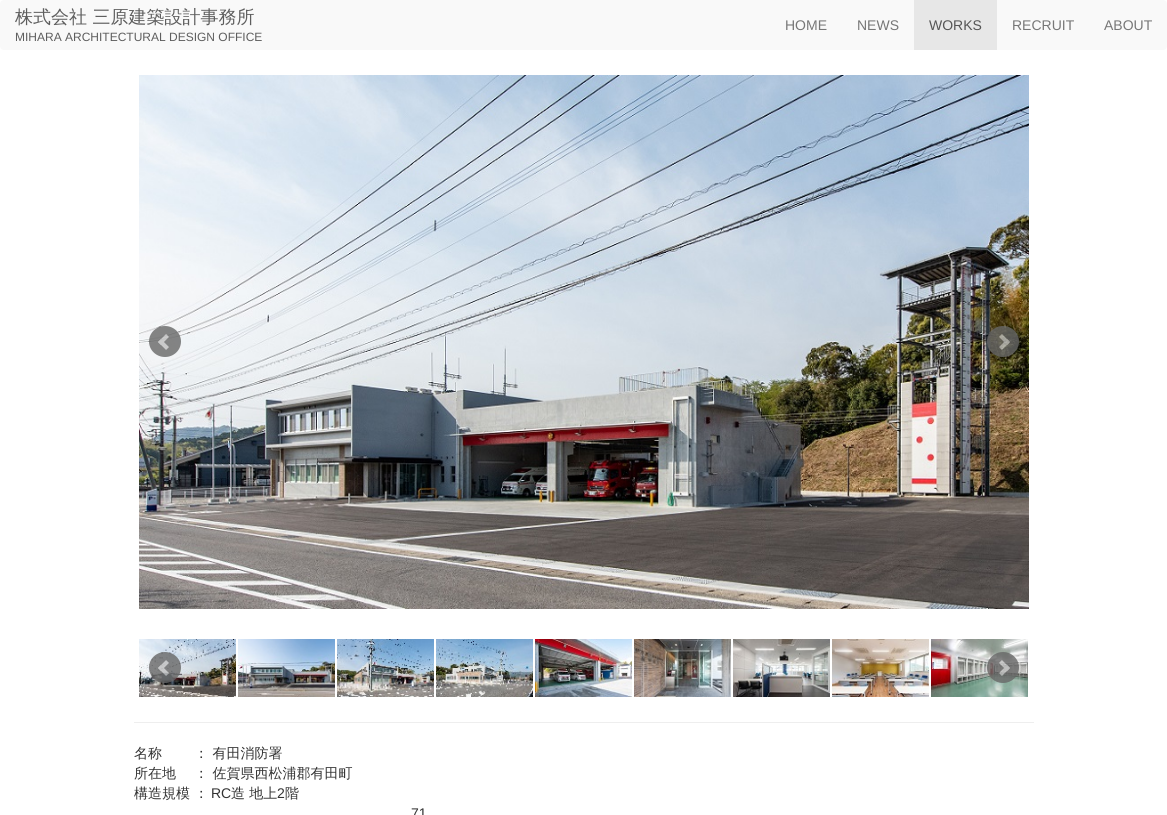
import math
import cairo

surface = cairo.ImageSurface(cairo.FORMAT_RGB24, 1167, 815)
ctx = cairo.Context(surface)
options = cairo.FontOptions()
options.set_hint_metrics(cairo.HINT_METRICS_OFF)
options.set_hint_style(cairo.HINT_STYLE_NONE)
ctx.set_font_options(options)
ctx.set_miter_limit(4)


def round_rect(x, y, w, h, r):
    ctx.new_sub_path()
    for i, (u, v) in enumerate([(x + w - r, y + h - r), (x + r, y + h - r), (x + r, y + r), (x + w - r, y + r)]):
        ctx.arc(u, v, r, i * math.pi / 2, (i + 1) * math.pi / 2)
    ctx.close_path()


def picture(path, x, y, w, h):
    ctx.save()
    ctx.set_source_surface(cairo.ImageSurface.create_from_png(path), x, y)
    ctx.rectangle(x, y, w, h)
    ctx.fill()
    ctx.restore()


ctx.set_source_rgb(1, 1, 1)
ctx.paint()
ctx.set_source_rgb(0.973, 0.973, 0.973)
round_rect(0, 0, 1167, 50, 4)
ctx.fill()
ctx.select_font_face("WenQuanYi Zen Hei Medium")
ctx.set_font_size(18)
ctx.set_source_rgb(0.369, 0.369, 0.369)
ctx.move_to(15, 23)
ctx.show_text("株式会社 三原建築設計事務所")
ctx.select_font_face("Liberation Sans")
ctx.set_font_size(12)
ctx.move_to(15, 41)
ctx.show_text("MIHARA ARCHITECTURAL DESIGN OFFICE")
ctx.set_font_size(14)
ctx.set_source_rgb(0.467, 0.467, 0.467)
ctx.move_to(785, 30)
ctx.show_text("HOME")
ctx.move_to(857, 30)
ctx.show_text("NEWS")
ctx.set_source_rgb(0.906, 0.906, 0.906)
ctx.rectangle(914, 0, 83, 50)
ctx.fill()
ctx.set_source_rgb(0.333, 0.333, 0.333)
ctx.move_to(929, 30)
ctx.show_text("WORKS")
ctx.set_source_rgb(0.467, 0.467, 0.467)
ctx.move_to(1012, 30)
ctx.show_text("RECRUIT")
ctx.move_to(1104, 30)
ctx.show_text("ABOUT")
picture("img1.png", 139, 75, 890, 534)
picture("img2.png", 149, 326, 32, 31)
picture("img3.png", 987, 326, 32, 31)
picture("img4.png", 139, 639, 97, 58)
picture("img5.png", 238, 639, 97, 58)
picture("img6.png", 337, 639, 97, 58)
picture("img7.png", 436, 639, 97, 58)
picture("img8.png", 535, 639, 97, 58)
picture("img9.png", 634, 639, 97, 58)
picture("img10.png", 733, 639, 97, 58)
picture("img11.png", 832, 639, 97, 58)
picture("img12.png", 931, 639, 97, 58)
picture("img13.png", 149, 652, 32, 31)
picture("img14.png", 987, 652, 32, 31)
ctx.set_source_rgb(0.933, 0.933, 0.933)
ctx.rectangle(134, 722, 900, 1)
ctx.fill()
ctx.select_font_face("WenQuanYi Zen Hei Medium")
ctx.set_source_rgb(0.2, 0.2, 0.2)
ctx.move_to(134, 758)
ctx.show_text("名称　　 ： 有田消防署")
ctx.move_to(134, 778)
ctx.show_text("所在地　 ： 佐賀県西松浦郡有田町")
ctx.move_to(134, 798)
ctx.show_text("構造規模 ：")
ctx.select_font_face("Liberation Sans")
ctx.move_to(211, 798)
ctx.show_text("RC")
ctx.select_font_face("WenQuanYi Zen Hei Medium")
ctx.move_to(231, 798)
ctx.show_text("造 地上")
ctx.select_font_face("Liberation Sans")
ctx.move_to(277, 798)
ctx.show_text("2")
ctx.select_font_face("WenQuanYi Zen Hei Medium")
ctx.move_to(285, 798)
ctx.show_text("階")
ctx.select_font_face("Liberation Sans")
ctx.move_to(411, 818)
ctx.show_text("71")
surface.write_to_png("page.png")
